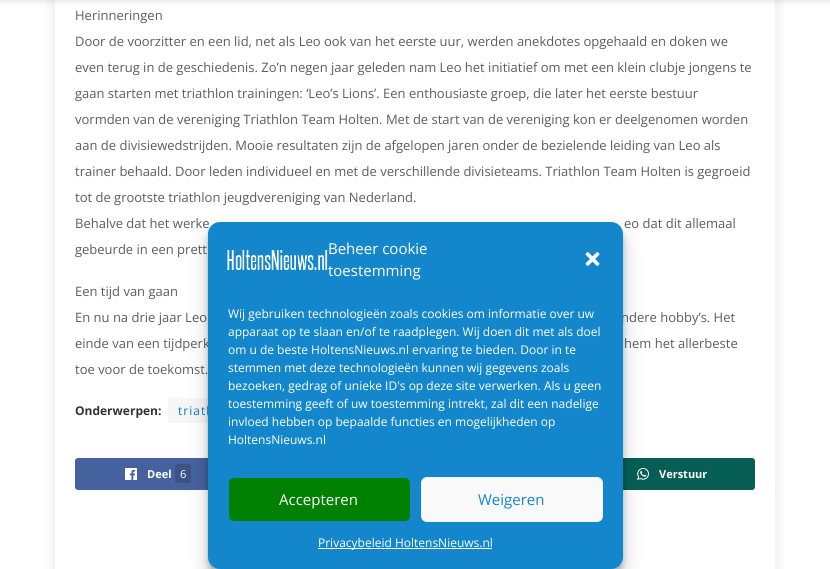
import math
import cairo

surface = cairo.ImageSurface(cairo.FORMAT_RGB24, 830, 569)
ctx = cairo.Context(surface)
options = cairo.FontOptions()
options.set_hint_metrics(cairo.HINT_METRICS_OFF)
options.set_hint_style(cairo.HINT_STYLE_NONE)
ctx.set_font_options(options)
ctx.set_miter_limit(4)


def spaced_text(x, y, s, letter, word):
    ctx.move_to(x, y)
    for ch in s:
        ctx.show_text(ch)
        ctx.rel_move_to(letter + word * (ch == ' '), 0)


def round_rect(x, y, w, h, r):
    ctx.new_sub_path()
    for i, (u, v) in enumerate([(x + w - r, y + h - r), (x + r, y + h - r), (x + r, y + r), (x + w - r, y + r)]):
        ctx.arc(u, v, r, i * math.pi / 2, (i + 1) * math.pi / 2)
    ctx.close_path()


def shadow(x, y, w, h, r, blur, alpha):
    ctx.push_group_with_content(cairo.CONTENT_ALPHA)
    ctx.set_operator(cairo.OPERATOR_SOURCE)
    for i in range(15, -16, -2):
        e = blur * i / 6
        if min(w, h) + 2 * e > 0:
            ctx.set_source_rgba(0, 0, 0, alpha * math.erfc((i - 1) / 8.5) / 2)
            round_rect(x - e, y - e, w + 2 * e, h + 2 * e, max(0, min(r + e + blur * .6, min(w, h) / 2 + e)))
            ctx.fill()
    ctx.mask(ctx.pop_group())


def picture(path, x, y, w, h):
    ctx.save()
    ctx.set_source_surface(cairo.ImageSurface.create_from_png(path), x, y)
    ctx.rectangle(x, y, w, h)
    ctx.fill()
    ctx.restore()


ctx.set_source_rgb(1, 1, 1)
ctx.paint()
ctx.set_source_rgb(0, 0, 0)
shadow(0, -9, 830, 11, 0, 3, 0.1)
ctx.save()
ctx.set_fill_rule(cairo.FILL_RULE_EVEN_ODD)
ctx.new_path()
ctx.move_to(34, 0)
ctx.line_to(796, 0)
ctx.line_to(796, 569)
ctx.line_to(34, 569)
ctx.close_path()
ctx.move_to(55, -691)
ctx.line_to(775, -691)
ctx.line_to(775, 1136)
ctx.line_to(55, 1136)
ctx.close_path()
ctx.clip()
shadow(53, -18, 724, 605, 0, 6, 0.08)
ctx.restore()
ctx.select_font_face("Open Sans")
ctx.set_font_size(13)
ctx.set_source_rgb(0.365, 0.365, 0.365)
ctx.move_to(75, 20)
ctx.show_text("Herinneringen")
ctx.move_to(75, 46)
ctx.show_text("Door de voorzitter en een lid, net als Leo ook van het eerste uur, werden anekdotes opgehaald en doken we")
ctx.move_to(75, 72)
ctx.show_text("even terug in de geschiedenis. Zo’n negen jaar geleden nam Leo het initiatief om met een klein clubje jongens te")
ctx.move_to(75, 98)
ctx.show_text("gaan starten met triathlon trainingen: ‘Leo’s Lions’. Een enthousiaste groep, die later het eerste bestuur")
ctx.move_to(75, 124)
ctx.show_text("vormden van de vereniging Triathlon Team Holten. Met de start van de vereniging kon er deelgenomen worden")
ctx.move_to(75, 150)
ctx.show_text("aan de divisiewedstrijden. Mooie resultaten zijn de afgelopen jaren onder de bezielende leiding van Leo als")
ctx.move_to(75, 176)
ctx.show_text("trainer behaald. Door leden individueel en met de verschillende divisieteams. Triathlon Team Holten is gegroeid")
ctx.move_to(75, 202)
ctx.show_text("tot de grootste triathlon jeugdvereniging van Nederland.")
ctx.move_to(75, 228)
ctx.show_text("Behalve dat het werke")
ctx.move_to(624, 228)
ctx.show_text("eo dat dit allemaal")
ctx.move_to(75, 254)
ctx.show_text("gebeurde in een prett")
ctx.move_to(75, 296)
ctx.show_text("Een tijd van gaan")
ctx.move_to(75, 322)
ctx.show_text("En nu na drie jaar Leo")
ctx.move_to(621, 322)
ctx.show_text("ndere hobby’s. Het")
ctx.move_to(75, 348)
ctx.show_text("einde van een tijdperk")
ctx.move_to(624, 348)
ctx.show_text("hem het allerbeste")
ctx.move_to(75, 374)
ctx.show_text("toe voor de toekomst.")
ctx.select_font_face("Open Sans", cairo.FONT_SLANT_NORMAL, cairo.FONT_WEIGHT_BOLD)
ctx.set_font_size(12)
ctx.set_source_rgb(0.2, 0.2, 0.2)
ctx.move_to(75, 415)
ctx.show_text("Onderwerpen:")
ctx.set_source_rgb(0.961, 0.961, 0.961)
ctx.rectangle(168, 398, 40, 25)
ctx.fill()
ctx.select_font_face("Open Sans")
ctx.set_source_rgb(0.035, 0.49, 0.761)
spaced_text(178, 415, "triath", 1, 0)
ctx.set_source_rgb(0.271, 0.384, 0.624)
round_rect(75, 458, 166, 32, 3)
ctx.fill()
picture("img1.png", 125, 468, 12, 12)
ctx.select_font_face("Open Sans", cairo.FONT_SLANT_NORMAL, cairo.FONT_WEIGHT_BOLD)
ctx.set_font_size(11)
ctx.set_source_rgb(1, 1, 1)
ctx.move_to(147, 478)
ctx.show_text("Deel")
ctx.set_source_rgb(0.231, 0.325, 0.529)
round_rect(175, 464, 16, 19, 2)
ctx.fill()
ctx.select_font_face("Open Sans")
ctx.set_source_rgb(1, 1, 1)
ctx.move_to(180, 478)
ctx.show_text("6")
ctx.set_source_rgb(0.027, 0.369, 0.329)
round_rect(589, 458, 166, 32, 3)
ctx.fill()
picture("img2.png", 637, 468, 12, 12)
ctx.select_font_face("Open Sans", cairo.FONT_SLANT_NORMAL, cairo.FONT_WEIGHT_BOLD)
ctx.set_source_rgb(1, 1, 1)
ctx.move_to(659, 478)
ctx.show_text("Verstuur")
ctx.set_source_rgb(0, 0, 0)
shadow(208, 228, 415, 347, 12, 3, 0.23)
shadow(208, 232, 415, 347, 12, 10, 0.19)
ctx.set_source_rgb(0.082, 0.529, 0.8)
round_rect(208, 222, 415, 347, 12)
ctx.fill()
picture("img3.png", 227, 250, 101, 20)
ctx.select_font_face("Open Sans")
ctx.set_font_size(15)
ctx.set_source_rgb(1, 1, 1)
ctx.move_to(328, 254)
ctx.show_text("Beheer cookie")
ctx.move_to(328, 276)
ctx.show_text("toestemming")
picture("img4.png", 585, 252, 15, 14)
ctx.set_font_size(12)
ctx.move_to(228, 318)
ctx.show_text("Wij gebruiken technologieën zoals cookies om informatie over uw")
ctx.move_to(228, 336)
ctx.show_text("apparaat op te slaan en/of te raadplegen. Wij doen dit met als doel")
ctx.move_to(228, 354)
ctx.show_text("om u de beste HoltensNieuws.nl ervaring te bieden. Door in te")
ctx.move_to(228, 372)
ctx.show_text("stemmen met deze technologieën kunnen wij gegevens zoals")
ctx.move_to(228, 390)
ctx.show_text("bezoeken, gedrag of unieke ID's op deze site verwerken. Als u geen")
ctx.move_to(228, 408)
ctx.show_text("toestemming geeft of uw toestemming intrekt, zal dit een nadelige")
ctx.move_to(228, 426)
ctx.show_text("invloed hebben op bepaalde functies en mogelijkheden op")
ctx.move_to(228, 444)
ctx.show_text("HoltensNieuws.nl")
ctx.set_source_rgb(0, 0.502, 0)
round_rect(228.5, 477.5, 182, 44, 5.5)
ctx.fill_preserve()
ctx.set_source_rgb(0.082, 0.529, 0.8)
ctx.set_line_width(1)
ctx.stroke()
ctx.set_font_size(15)
ctx.set_source_rgb(1, 1, 1)
ctx.move_to(279, 505)
ctx.show_text("Accepteren")
ctx.set_source_rgb(0.976, 0.976, 0.976)
round_rect(421.5, 477.5, 181, 44, 5.5)
ctx.fill_preserve()
ctx.set_source_rgb(0.949, 0.949, 0.949)
ctx.stroke()
ctx.set_source_rgb(0.082, 0.529, 0.8)
ctx.move_to(478, 505)
ctx.show_text("Weigeren")
ctx.set_source_rgb(1, 1, 1)
ctx.rectangle(318, 548, 174, 1)
ctx.fill()
ctx.set_font_size(12)
ctx.move_to(318, 547)
ctx.show_text("Privacybeleid HoltensNieuws.nl")
surface.write_to_png("page.png")
